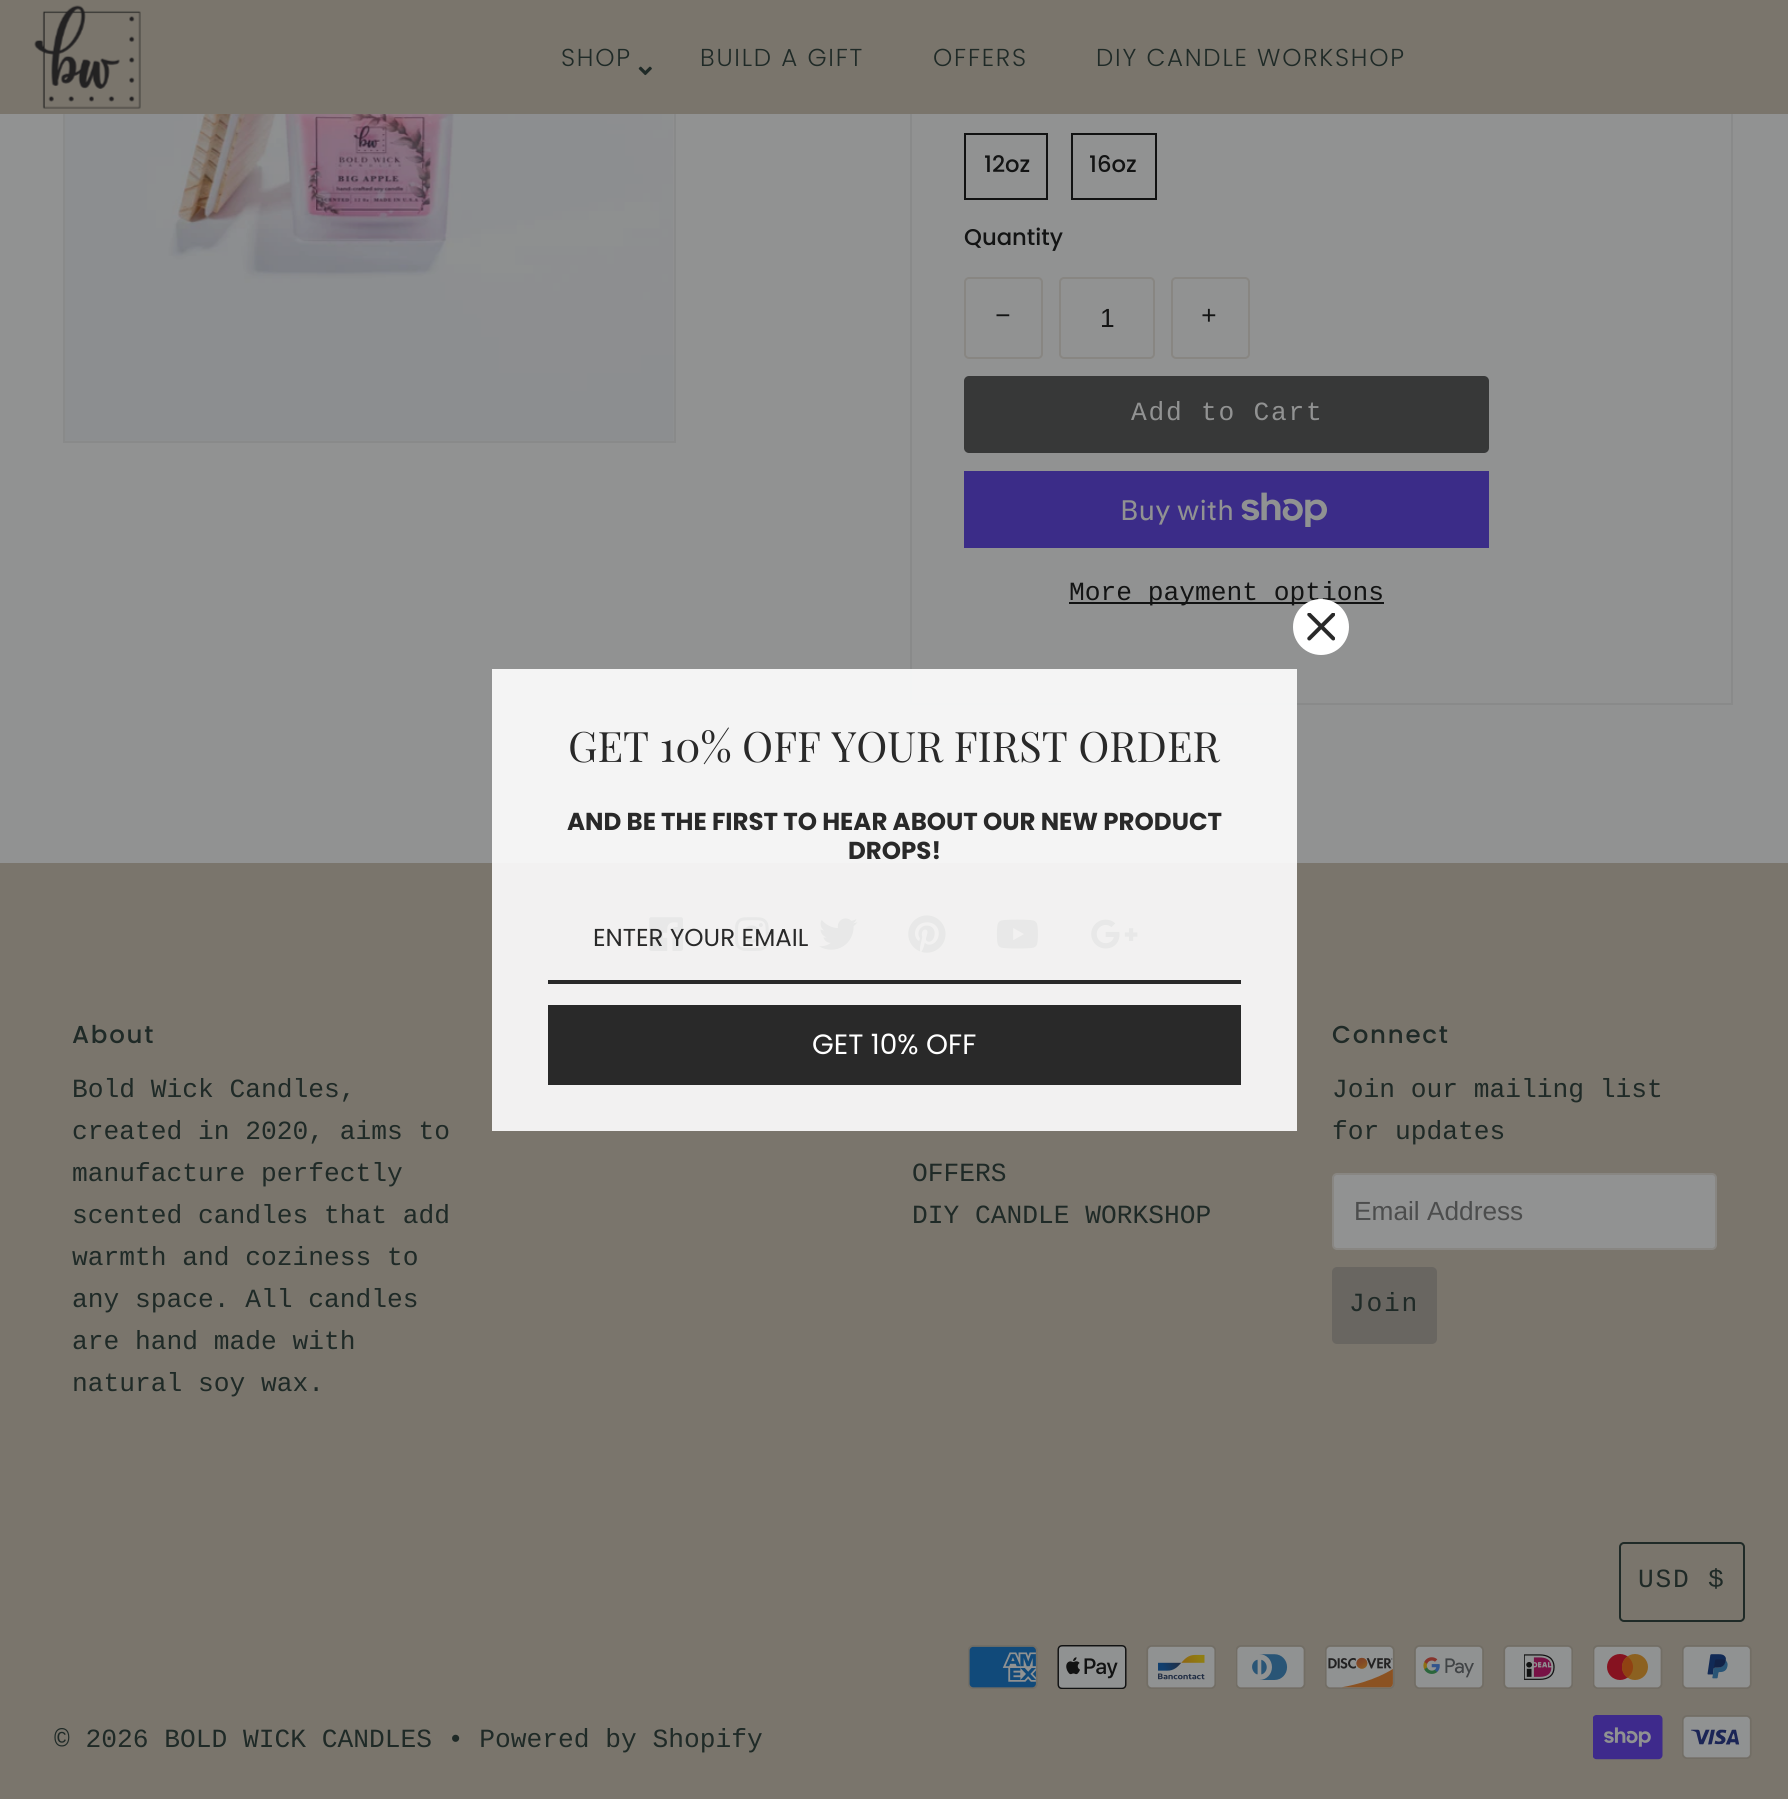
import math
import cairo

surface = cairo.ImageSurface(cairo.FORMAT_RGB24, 1788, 1799)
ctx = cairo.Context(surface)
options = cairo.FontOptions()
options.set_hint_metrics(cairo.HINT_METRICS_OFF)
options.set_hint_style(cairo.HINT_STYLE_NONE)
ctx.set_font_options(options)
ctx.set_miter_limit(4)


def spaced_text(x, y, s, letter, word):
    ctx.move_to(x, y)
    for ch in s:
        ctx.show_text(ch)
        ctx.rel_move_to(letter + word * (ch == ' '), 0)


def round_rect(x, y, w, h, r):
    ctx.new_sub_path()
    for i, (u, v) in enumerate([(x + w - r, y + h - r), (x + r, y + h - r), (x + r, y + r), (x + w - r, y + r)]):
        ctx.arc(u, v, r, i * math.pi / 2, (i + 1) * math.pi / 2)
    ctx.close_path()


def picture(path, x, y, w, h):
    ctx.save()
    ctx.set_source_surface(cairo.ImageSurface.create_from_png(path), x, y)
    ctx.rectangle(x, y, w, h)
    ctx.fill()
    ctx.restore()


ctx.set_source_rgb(0.569, 0.573, 0.573)
ctx.paint()
ctx.rectangle(64, -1, 611, 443)
ctx.set_source_rgb(0.537, 0.541, 0.541)
ctx.stroke()
ctx.rectangle(911, -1, 821, 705)
ctx.stroke()
ctx.set_source_rgb(0.478, 0.459, 0.424)
ctx.rectangle(0, 0, 1788, 114)
ctx.fill()
picture("img1.png", 34, 5, 107, 104)
ctx.select_font_face("Poppins Light")
ctx.set_font_size(24.5)
ctx.set_source_rgb(0.122, 0.165, 0.153)
spaced_text(561, 66, "SHOP", 1.75, 0)
picture("img2.png", 638, 66, 14, 10)
spaced_text(700, 66, "BUILD A GIFT", 1.75, 0)
spaced_text(933, 66, "OFFERS", 1.75, 0)
spaced_text(1096, 66, "DIY CANDLE WORKSHOP", 1.75, 0)
picture("img3.png", 65, 114, 609, 327)
ctx.rectangle(965, 134, 82, 65)
ctx.set_source_rgb(0.067, 0.071, 0.071)
ctx.stroke()
ctx.select_font_face("Poppins Medium")
ctx.set_font_size(22.75)
ctx.set_source_rgb(0.078, 0.082, 0.082)
ctx.move_to(984, 172)
ctx.show_text("12oz")
ctx.rectangle(1072, 134, 84, 65)
ctx.set_source_rgb(0.067, 0.071, 0.071)
ctx.stroke()
ctx.set_source_rgb(0.078, 0.082, 0.082)
ctx.move_to(1089, 172)
ctx.show_text("16oz")
ctx.move_to(964, 245)
ctx.show_text("Quantity")
round_rect(965, 278, 77, 80, 4)
ctx.set_source_rgb(0.533, 0.525, 0.51)
ctx.stroke()
ctx.select_font_face("Liberation Mono")
ctx.set_font_size(26.25)
ctx.set_source_rgb(0.078, 0.082, 0.082)
spaced_text(995, 324, "−", 1.75, 0)
round_rect(1060, 278, 94, 80, 4)
ctx.set_source_rgb(0.533, 0.525, 0.51)
ctx.stroke()
ctx.select_font_face("Liberation Sans")
ctx.set_source_rgb(0.078, 0.082, 0.082)
ctx.move_to(1100, 327)
ctx.show_text("1")
round_rect(1172, 278, 77, 80, 4)
ctx.set_source_rgb(0.533, 0.525, 0.51)
ctx.stroke()
ctx.select_font_face("Liberation Mono")
ctx.set_source_rgb(0.078, 0.082, 0.082)
spaced_text(1201, 324, "+", 1.75, 0)
ctx.set_source_rgb(0.216, 0.22, 0.22)
round_rect(964, 376, 525, 77, 5)
ctx.fill()
ctx.set_source_rgb(0.569, 0.573, 0.573)
spaced_text(1131, 420, "Add to Cart", 1.75, 0)
ctx.set_source_rgb(0.231, 0.173, 0.533)
ctx.rectangle(964, 471, 525, 77)
ctx.fill()
ctx.select_font_face("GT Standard")
ctx.set_font_size(28)
ctx.set_source_rgb(0.569, 0.573, 0.573)
ctx.move_to(1120, 520)
ctx.show_text("Buy with")
picture("img4.png", 1241, 492, 86, 35)
ctx.set_source_rgb(0.067, 0.071, 0.071)
ctx.rectangle(1069, 602, 315, 2)
ctx.fill()
ctx.select_font_face("Liberation Mono")
ctx.set_font_size(26.25)
ctx.set_source_rgb(0.078, 0.082, 0.082)
ctx.move_to(1069, 600)
ctx.show_text("More payment options")
ctx.set_source_rgb(0.478, 0.459, 0.424)
ctx.rectangle(0, 863, 1788, 936)
ctx.fill()
picture("img5.png", 649, 917, 34, 34)
picture("img6.png", 735, 917, 34, 34)
picture("img7.png", 819, 918, 39, 32)
picture("img8.png", 908, 915, 38, 38)
picture("img9.png", 996, 919, 42, 30)
picture("img10.png", 1091, 919, 47, 30)
ctx.select_font_face("Poppins Medium")
ctx.set_font_size(24.5)
ctx.set_source_rgb(0.122, 0.165, 0.153)
spaced_text(72, 1043, "About", 1.75, 0)
ctx.select_font_face("Liberation Mono")
ctx.set_font_size(26.25)
ctx.move_to(72, 1097)
ctx.show_text("Bold Wick Candles,")
ctx.move_to(72, 1139)
ctx.show_text("created in 2020, aims to")
ctx.move_to(72, 1181)
ctx.show_text("manufacture perfectly")
ctx.move_to(72, 1223)
ctx.show_text("scented candles that add")
ctx.move_to(72, 1265)
ctx.show_text("warmth and coziness to")
ctx.move_to(72, 1307)
ctx.show_text("any space. All candles")
ctx.move_to(72, 1349)
ctx.show_text("are hand made with")
ctx.move_to(72, 1391)
ctx.show_text("natural soy wax.")
ctx.move_to(912, 1181)
ctx.show_text("OFFERS")
ctx.move_to(912, 1223)
ctx.show_text("DIY CANDLE WORKSHOP")
ctx.select_font_face("Poppins Medium")
ctx.set_font_size(24.5)
spaced_text(1332, 1043, "Connect", 1.75, 0)
ctx.select_font_face("Liberation Mono")
ctx.set_font_size(26.25)
ctx.move_to(1332, 1097)
ctx.show_text("Join our mailing list")
ctx.move_to(1332, 1139)
ctx.show_text("for updates")
ctx.set_source_rgb(0.569, 0.573, 0.573)
round_rect(1333, 1174, 383, 75, 4)
ctx.fill_preserve()
ctx.set_source_rgb(0.533, 0.525, 0.51)
ctx.stroke()
ctx.select_font_face("Liberation Sans")
ctx.set_source_rgb(0.298, 0.302, 0.302)
ctx.move_to(1354, 1220)
ctx.show_text("Email Address")
ctx.set_source_rgb(0.412, 0.4, 0.38)
round_rect(1332, 1267, 105, 77, 5)
ctx.fill()
ctx.select_font_face("Liberation Mono")
ctx.set_source_rgb(0.122, 0.165, 0.153)
spaced_text(1349, 1311, "Join", 1.75, 0)
round_rect(1620, 1543, 124, 78, 4)
ctx.stroke()
spaced_text(1638, 1587, "USD $", 1.75, 0)
picture("img11.png", 968, 1645, 70, 44)
picture("img12.png", 1057, 1645, 70, 44)
picture("img13.png", 1146, 1645, 70, 44)
picture("img14.png", 1236, 1645, 70, 44)
picture("img15.png", 1325, 1645, 70, 44)
picture("img16.png", 1414, 1645, 70, 44)
picture("img17.png", 1503, 1645, 70, 44)
picture("img18.png", 1593, 1645, 70, 44)
picture("img19.png", 1682, 1645, 70, 44)
picture("img20.png", 1593, 1715, 70, 45)
picture("img21.png", 1682, 1715, 70, 44)
ctx.move_to(54, 1747)
ctx.show_text("© 2026 BOLD WICK CANDLES • Powered by Shopify")
ctx.set_source_rgb(1, 1, 1)
ctx.new_path()
ctx.arc(1321, 627, 28, 0, 2 * math.pi)
ctx.fill()
picture("img22.png", 1307, 613, 28, 28)
ctx.set_source_rgba(1, 1, 1, 0.9)
ctx.rectangle(492, 669, 805, 462)
ctx.fill()
ctx.select_font_face("Playfair Display")
ctx.set_font_size(42)
ctx.set_source_rgb(0.161, 0.161, 0.161)
ctx.move_to(568, 762)
ctx.show_text("GET 10% OFF YOUR FIRST ORDER")
ctx.select_font_face("Poppins", cairo.FONT_SLANT_NORMAL, cairo.FONT_WEIGHT_BOLD)
ctx.set_font_size(24.5)
ctx.move_to(567, 830)
ctx.show_text("AND BE THE FIRST TO HEAR ABOUT OUR NEW PRODUCT")
ctx.move_to(848, 859)
ctx.show_text("DROPS!")
ctx.rectangle(548, 980, 693, 4)
ctx.fill()
ctx.select_font_face("Poppins")
ctx.move_to(593, 946)
ctx.show_text("ENTER YOUR EMAIL")
ctx.rectangle(548, 1005, 693, 80)
ctx.fill()
ctx.set_font_size(28)
ctx.set_source_rgb(1, 1, 1)
ctx.move_to(812, 1054)
ctx.show_text("GET 10% OFF")
surface.write_to_png("page.png")
